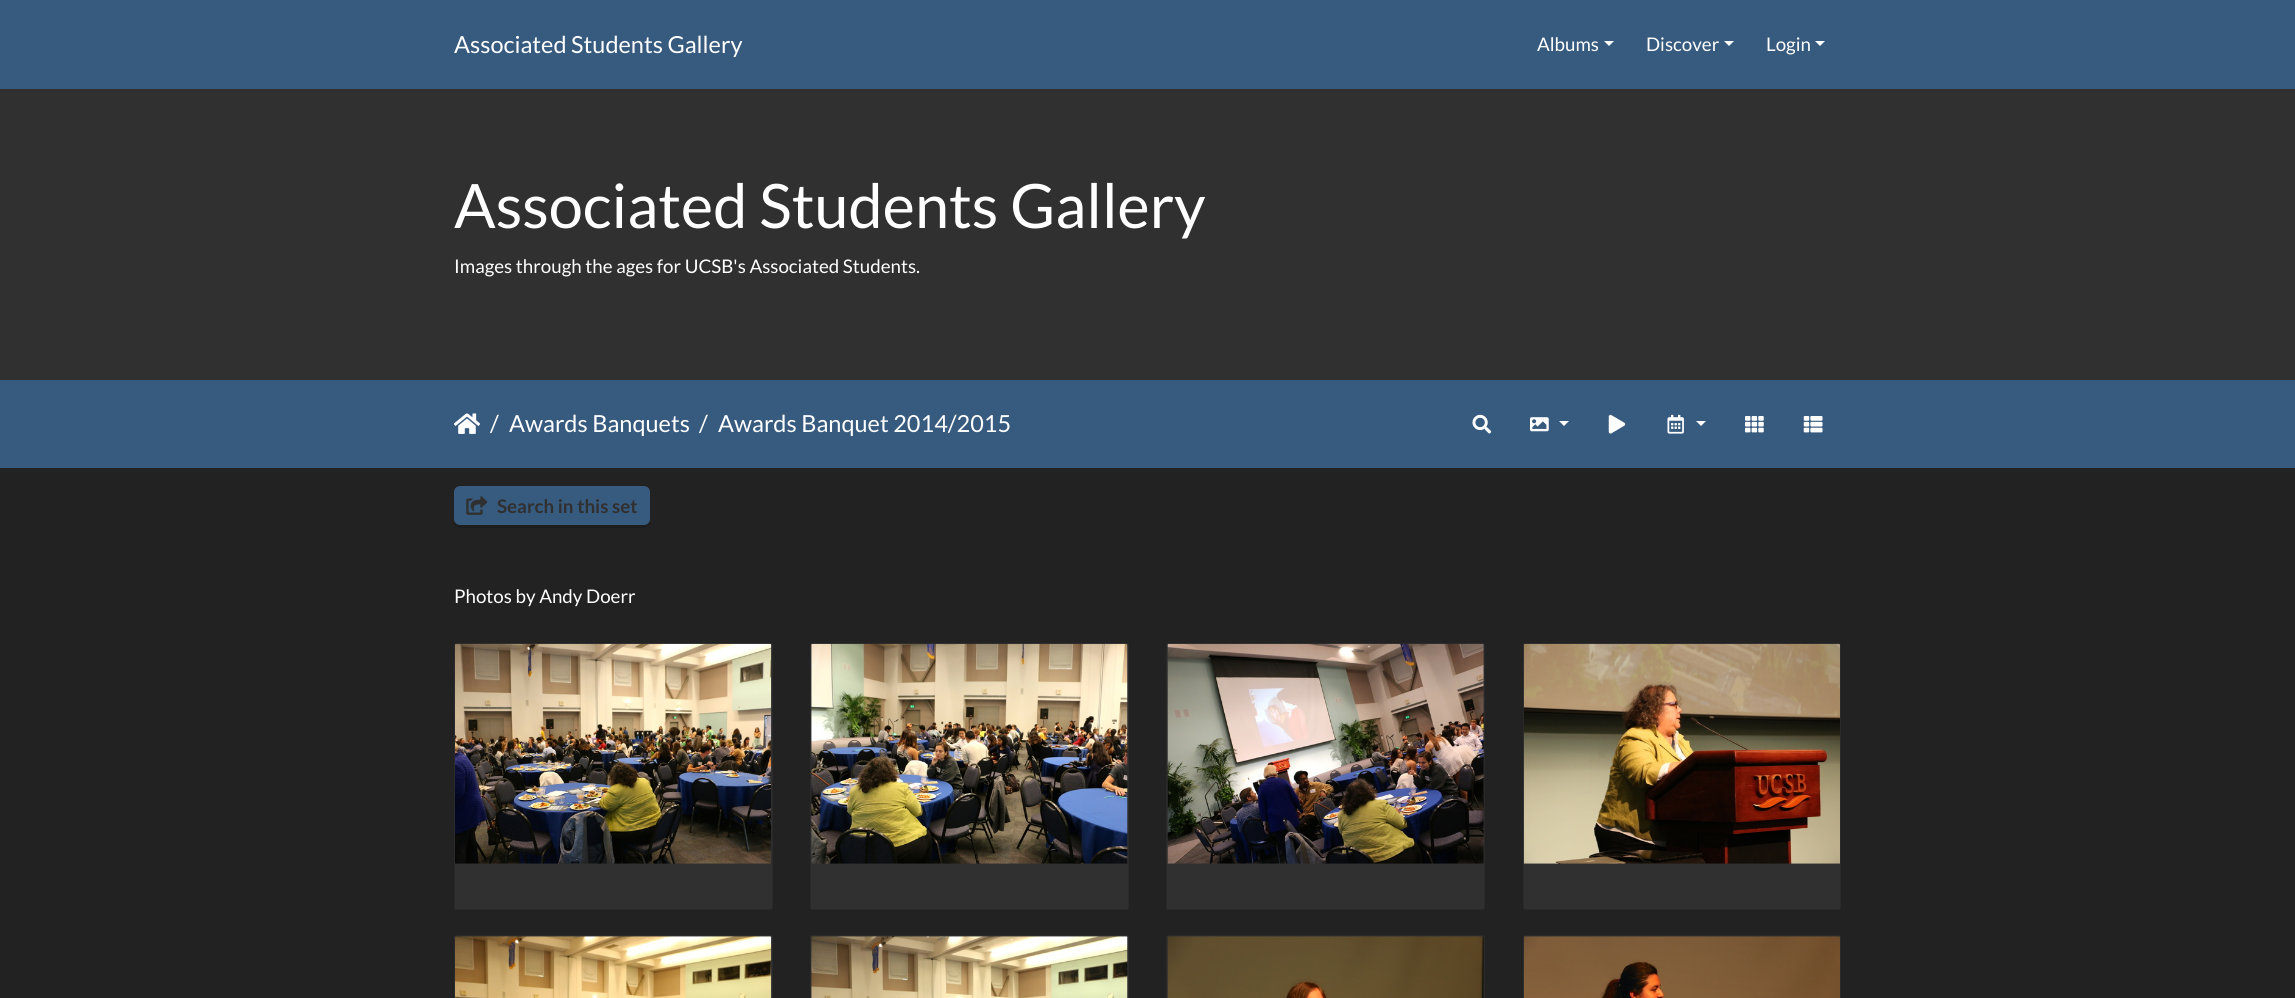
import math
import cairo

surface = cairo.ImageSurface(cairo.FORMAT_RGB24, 2295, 998)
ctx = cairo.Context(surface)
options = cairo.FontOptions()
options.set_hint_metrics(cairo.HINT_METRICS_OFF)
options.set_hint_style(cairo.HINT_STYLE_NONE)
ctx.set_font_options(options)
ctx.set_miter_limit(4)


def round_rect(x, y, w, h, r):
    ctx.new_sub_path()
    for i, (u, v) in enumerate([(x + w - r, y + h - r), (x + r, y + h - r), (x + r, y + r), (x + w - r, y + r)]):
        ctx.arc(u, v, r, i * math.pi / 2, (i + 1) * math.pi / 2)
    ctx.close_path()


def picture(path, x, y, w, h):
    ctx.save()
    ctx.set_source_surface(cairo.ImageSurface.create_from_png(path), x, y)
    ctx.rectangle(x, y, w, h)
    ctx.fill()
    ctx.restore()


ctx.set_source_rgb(0.133, 0.133, 0.133)
ctx.paint()
ctx.set_source_rgb(0.216, 0.353, 0.498)
ctx.rectangle(0, 0, 2295, 89)
ctx.fill()
ctx.select_font_face("Lato")
ctx.set_font_size(23.5)
ctx.set_source_rgb(1, 1, 1)
ctx.move_to(454, 53)
ctx.show_text("Associated Students Gallery")
ctx.set_font_size(18.75)
ctx.move_to(1537, 51)
ctx.show_text("Albums")
ctx.new_path()
ctx.move_to(1604, 41)
ctx.line_to(1614, 41)
ctx.line_to(1609, 46)
ctx.close_path()
ctx.fill()
ctx.move_to(1646, 51)
ctx.show_text("Discover")
ctx.new_path()
ctx.move_to(1724, 41)
ctx.line_to(1734, 41)
ctx.line_to(1729, 46)
ctx.close_path()
ctx.fill()
ctx.move_to(1766, 51)
ctx.show_text("Login")
ctx.new_path()
ctx.move_to(1815, 41)
ctx.line_to(1825, 41)
ctx.line_to(1820, 46)
ctx.close_path()
ctx.fill()
ctx.set_source_rgb(0.188, 0.188, 0.188)
ctx.rectangle(0, 89, 2295, 291)
ctx.fill()
ctx.set_font_size(61.25)
ctx.set_source_rgb(1, 1, 1)
ctx.move_to(454, 228)
ctx.show_text("Associated Students Gallery")
ctx.set_font_size(18.75)
ctx.move_to(454, 273)
ctx.show_text("Images through the ages for UCSB's Associated Students.")
ctx.set_source_rgb(0.216, 0.353, 0.498)
ctx.rectangle(0, 380, 2295, 88)
ctx.fill()
picture("img1.png", 454, 413, 26, 21)
ctx.set_font_size(23.5)
ctx.set_source_rgb(1, 1, 1)
ctx.move_to(490, 432)
ctx.show_text("/")
ctx.move_to(509, 432)
ctx.show_text("Awards Banquets")
ctx.move_to(699, 432)
ctx.show_text("/")
ctx.move_to(718, 432)
ctx.show_text("Awards Banquet 2014/2015")
picture("img2.png", 1472, 414, 20, 20)
picture("img3.png", 1530, 417, 19, 15)
ctx.new_path()
ctx.move_to(1559, 421)
ctx.line_to(1569, 421)
ctx.line_to(1564, 426)
ctx.close_path()
ctx.fill()
picture("img4.png", 1608, 414, 18, 20)
picture("img5.png", 1667, 414, 17, 20)
ctx.new_path()
ctx.move_to(1696, 421)
ctx.line_to(1706, 421)
ctx.line_to(1701, 426)
ctx.close_path()
ctx.fill()
picture("img6.png", 1745, 416, 19, 17)
picture("img7.png", 1803, 416, 20, 17)
ctx.set_source_rgb(0.114, 0.114, 0.114)
ctx.new_path()
ctx.move_to(454, 521)
ctx.line_to(454, 522)
ctx.curve_to(454, 525, 457, 528, 460, 528)
ctx.line_to(644, 528)
ctx.curve_to(647, 528, 650, 525, 650, 522)
ctx.line_to(650, 519)
ctx.curve_to(650, 522, 647, 525, 644, 525)
ctx.line_to(460, 525)
ctx.curve_to(457, 525, 455, 523, 454, 521)
ctx.close_path()
ctx.fill()
ctx.set_source_rgb(0.216, 0.353, 0.498)
round_rect(454, 486, 196, 39, 6)
ctx.fill()
picture("img8.png", 466, 496, 22, 19)
ctx.select_font_face("Lato", cairo.FONT_SLANT_NORMAL, cairo.FONT_WEIGHT_BOLD)
ctx.set_font_size(18.75)
ctx.set_source_rgb(0.188, 0.188, 0.188)
ctx.move_to(497, 513)
ctx.show_text("Search in this set")
ctx.select_font_face("Lato")
ctx.set_source_rgb(1, 1, 1)
ctx.move_to(454, 603)
ctx.show_text("Photos by Andy Doerr")
ctx.set_source_rgb(0.188, 0.188, 0.188)
round_rect(454, 643, 319, 267, 2.5)
ctx.fill()
round_rect(454.5, 643.5, 318, 266, 2)
ctx.set_source_rgba(0, 0, 0, 0.12)
ctx.set_line_width(1)
ctx.stroke()
picture("img9.png", 455, 643, 317, 221)
ctx.set_source_rgb(0.188, 0.188, 0.188)
round_rect(810, 643, 319, 267, 2.5)
ctx.fill()
round_rect(810.5, 643.5, 318, 266, 2)
ctx.set_source_rgba(0, 0, 0, 0.12)
ctx.stroke()
picture("img10.png", 811, 643, 317, 221)
ctx.set_source_rgb(0.188, 0.188, 0.188)
round_rect(1166, 643, 319, 267, 2.5)
ctx.fill()
round_rect(1166.5, 643.5, 318, 266, 2)
ctx.set_source_rgba(0, 0, 0, 0.12)
ctx.stroke()
picture("img11.png", 1167, 643, 317, 221)
ctx.set_source_rgb(0.188, 0.188, 0.188)
round_rect(1523, 643, 318, 267, 2.5)
ctx.fill()
round_rect(1523.5, 643.5, 317, 266, 2)
ctx.set_source_rgba(0, 0, 0, 0.12)
ctx.stroke()
picture("img12.png", 1523, 643, 317, 221)
ctx.set_source_rgb(0.188, 0.188, 0.188)
round_rect(454, 935, 319, 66, 2.5)
ctx.fill()
round_rect(454.5, 935.5, 318, 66, 2)
ctx.set_source_rgba(0, 0, 0, 0.12)
ctx.stroke()
picture("img13.png", 455, 936, 317, 62)
ctx.set_source_rgb(0.188, 0.188, 0.188)
round_rect(810, 935, 319, 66, 2.5)
ctx.fill()
round_rect(810.5, 935.5, 318, 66, 2)
ctx.set_source_rgba(0, 0, 0, 0.12)
ctx.stroke()
picture("img14.png", 811, 936, 317, 62)
ctx.set_source_rgb(0.188, 0.188, 0.188)
round_rect(1166, 935, 319, 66, 2.5)
ctx.fill()
round_rect(1166.5, 935.5, 318, 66, 2)
ctx.set_source_rgba(0, 0, 0, 0.12)
ctx.stroke()
picture("img15.png", 1167, 936, 317, 62)
ctx.set_source_rgb(0.188, 0.188, 0.188)
round_rect(1523, 935, 318, 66, 2.5)
ctx.fill()
round_rect(1523.5, 935.5, 317, 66, 2)
ctx.set_source_rgba(0, 0, 0, 0.12)
ctx.stroke()
picture("img16.png", 1523, 936, 317, 62)
surface.write_to_png("page.png")
